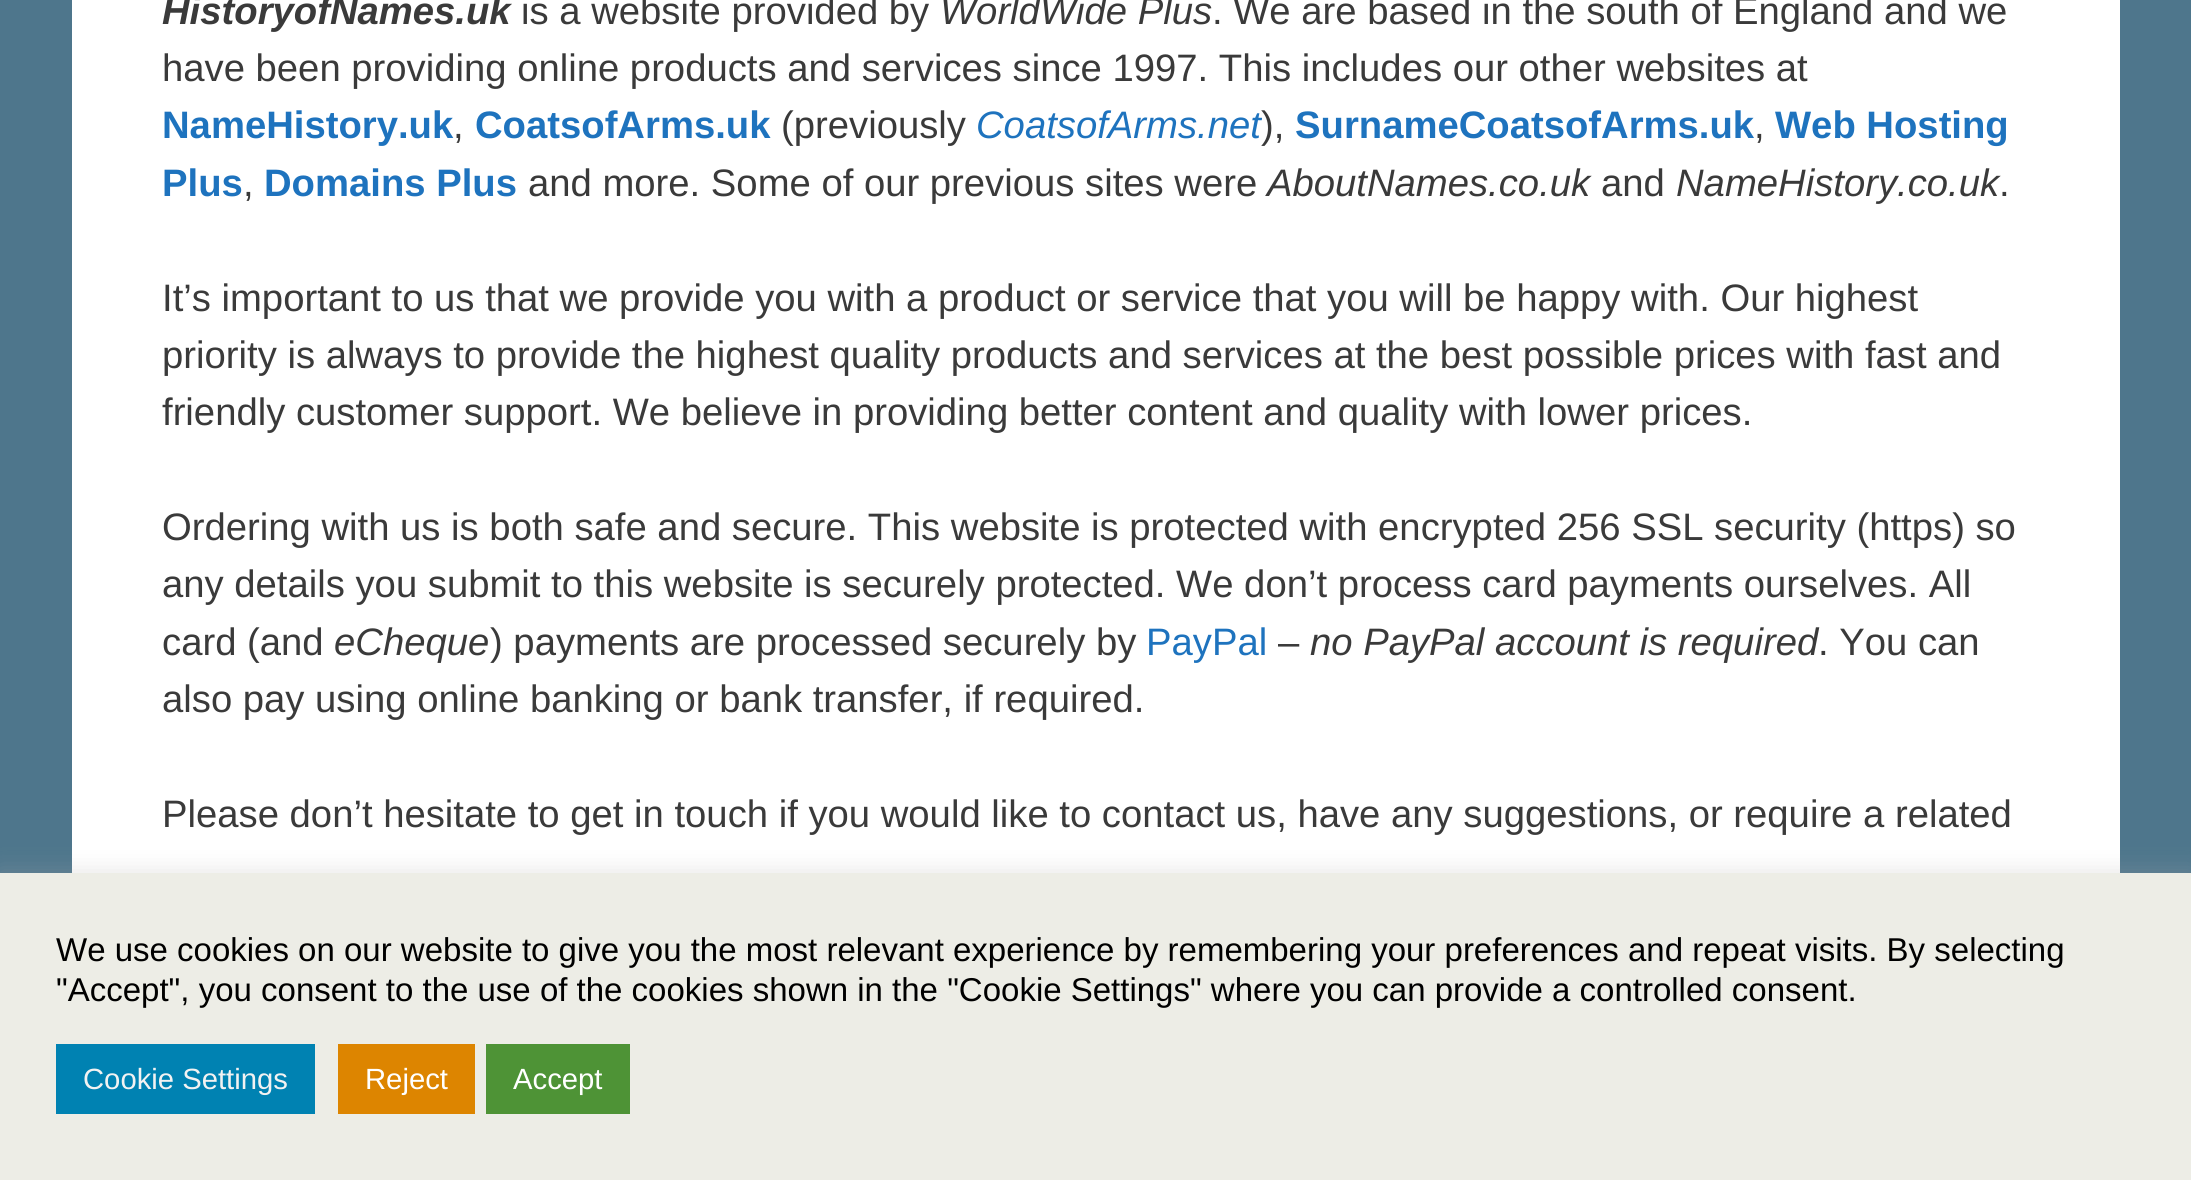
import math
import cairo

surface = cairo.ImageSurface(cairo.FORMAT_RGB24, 2191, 1180)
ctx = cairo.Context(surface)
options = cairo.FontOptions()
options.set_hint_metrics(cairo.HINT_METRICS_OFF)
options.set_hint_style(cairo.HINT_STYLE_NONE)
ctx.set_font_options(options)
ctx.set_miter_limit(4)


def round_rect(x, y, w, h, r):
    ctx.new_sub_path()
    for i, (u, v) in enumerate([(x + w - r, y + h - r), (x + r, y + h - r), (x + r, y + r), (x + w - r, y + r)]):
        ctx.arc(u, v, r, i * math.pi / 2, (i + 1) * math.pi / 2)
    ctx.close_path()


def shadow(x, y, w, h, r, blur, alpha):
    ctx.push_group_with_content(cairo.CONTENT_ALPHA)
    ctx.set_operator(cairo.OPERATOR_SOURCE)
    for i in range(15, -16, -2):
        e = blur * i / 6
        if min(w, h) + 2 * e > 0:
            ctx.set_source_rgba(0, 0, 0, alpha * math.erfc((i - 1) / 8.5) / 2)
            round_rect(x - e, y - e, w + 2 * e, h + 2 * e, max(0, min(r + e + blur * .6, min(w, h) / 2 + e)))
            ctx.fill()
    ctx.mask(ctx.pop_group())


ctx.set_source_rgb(0.306, 0.463, 0.549)
ctx.paint()
ctx.set_source_rgb(1, 1, 1)
ctx.rectangle(72, 0, 2048, 873)
ctx.fill()
ctx.select_font_face("Liberation Sans", cairo.FONT_SLANT_ITALIC, cairo.FONT_WEIGHT_BOLD)
ctx.set_font_size(38.25)
ctx.set_source_rgb(0.227, 0.227, 0.227)
ctx.move_to(162, 24)
ctx.show_text("HistoryofNames.uk")
ctx.select_font_face("Liberation Sans")
ctx.move_to(521, 24)
ctx.show_text("is a website provided by")
ctx.select_font_face("Liberation Sans", cairo.FONT_SLANT_ITALIC)
ctx.move_to(940, 24)
ctx.show_text("WorldWide Plus")
ctx.select_font_face("Liberation Sans")
ctx.move_to(1212, 24)
ctx.show_text(". We are based in the south of England and we")
ctx.move_to(162, 81)
ctx.show_text("have been providing online products and services since 1997. This includes our other websites at")
ctx.select_font_face("Liberation Sans", cairo.FONT_SLANT_NORMAL, cairo.FONT_WEIGHT_BOLD)
ctx.set_source_rgb(0.118, 0.451, 0.745)
ctx.move_to(162, 138)
ctx.show_text("NameHistory.uk")
ctx.select_font_face("Liberation Sans")
ctx.set_source_rgb(0.227, 0.227, 0.227)
ctx.move_to(453, 138)
ctx.show_text(",")
ctx.select_font_face("Liberation Sans", cairo.FONT_SLANT_NORMAL, cairo.FONT_WEIGHT_BOLD)
ctx.set_source_rgb(0.118, 0.451, 0.745)
ctx.move_to(475, 138)
ctx.show_text("CoatsofArms.uk")
ctx.select_font_face("Liberation Sans")
ctx.set_source_rgb(0.227, 0.227, 0.227)
ctx.move_to(781, 138)
ctx.show_text("(previously")
ctx.select_font_face("Liberation Sans", cairo.FONT_SLANT_ITALIC)
ctx.set_source_rgb(0.118, 0.451, 0.745)
ctx.move_to(976, 138)
ctx.show_text("CoatsofArms.net")
ctx.select_font_face("Liberation Sans")
ctx.set_source_rgb(0.227, 0.227, 0.227)
ctx.move_to(1261, 138)
ctx.show_text("),")
ctx.select_font_face("Liberation Sans", cairo.FONT_SLANT_NORMAL, cairo.FONT_WEIGHT_BOLD)
ctx.set_source_rgb(0.118, 0.451, 0.745)
ctx.move_to(1295, 138)
ctx.show_text("SurnameCoatsofArms.uk")
ctx.select_font_face("Liberation Sans")
ctx.set_source_rgb(0.227, 0.227, 0.227)
ctx.move_to(1754, 138)
ctx.show_text(",")
ctx.select_font_face("Liberation Sans", cairo.FONT_SLANT_NORMAL, cairo.FONT_WEIGHT_BOLD)
ctx.set_source_rgb(0.118, 0.451, 0.745)
ctx.move_to(1775, 138)
ctx.show_text("Web Hosting")
ctx.move_to(162, 196)
ctx.show_text("Plus")
ctx.select_font_face("Liberation Sans")
ctx.set_source_rgb(0.227, 0.227, 0.227)
ctx.move_to(243, 196)
ctx.show_text(",")
ctx.select_font_face("Liberation Sans", cairo.FONT_SLANT_NORMAL, cairo.FONT_WEIGHT_BOLD)
ctx.set_source_rgb(0.118, 0.451, 0.745)
ctx.move_to(264, 196)
ctx.show_text("Domains Plus")
ctx.select_font_face("Liberation Sans")
ctx.set_source_rgb(0.227, 0.227, 0.227)
ctx.move_to(528, 196)
ctx.show_text("and more. Some of our previous sites were")
ctx.select_font_face("Liberation Sans", cairo.FONT_SLANT_ITALIC)
ctx.move_to(1267, 196)
ctx.show_text("AboutNames.co.uk")
ctx.select_font_face("Liberation Sans")
ctx.move_to(1601, 196)
ctx.show_text("and")
ctx.select_font_face("Liberation Sans", cairo.FONT_SLANT_ITALIC)
ctx.move_to(1676, 196)
ctx.show_text("NameHistory.co.uk")
ctx.select_font_face("Liberation Sans")
ctx.move_to(1999, 196)
ctx.show_text(".")
ctx.move_to(162, 311)
ctx.show_text("It’s important to us that we provide you with a product or service that you will be happy with. Our highest")
ctx.move_to(162, 368)
ctx.show_text("priority is always to provide the highest quality products and services at the best possible prices with fast and")
ctx.move_to(162, 425)
ctx.show_text("friendly customer support. We believe in providing better content and quality with lower prices.")
ctx.move_to(162, 540)
ctx.show_text("Ordering with us is both safe and secure. This website is protected with encrypted 256 SSL security (https) so")
ctx.move_to(162, 597)
ctx.show_text("any details you submit to this website is securely protected. We don’t process card payments ourselves. All")
ctx.move_to(162, 655)
ctx.show_text("card (and")
ctx.select_font_face("Liberation Sans", cairo.FONT_SLANT_ITALIC)
ctx.move_to(334, 655)
ctx.show_text("eCheque")
ctx.select_font_face("Liberation Sans")
ctx.move_to(490, 655)
ctx.show_text(") payments are processed securely by")
ctx.set_source_rgb(0.118, 0.451, 0.745)
ctx.move_to(1146, 655)
ctx.show_text("PayPal")
ctx.set_source_rgb(0.227, 0.227, 0.227)
ctx.move_to(1278, 655)
ctx.show_text("–")
ctx.select_font_face("Liberation Sans", cairo.FONT_SLANT_ITALIC)
ctx.move_to(1310, 655)
ctx.show_text("no PayPal account is required")
ctx.select_font_face("Liberation Sans")
ctx.move_to(1818, 655)
ctx.show_text(". You can")
ctx.move_to(162, 712)
ctx.show_text("also pay using online banking or bank transfer, if required.")
ctx.move_to(162, 827)
ctx.show_text("Please don’t hesitate to get in touch if you would like to contact us, have any suggestions, or require a related")
ctx.set_source_rgb(0.675, 0.671, 0.671)
shadow(0, 871, 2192, 308, 0, 11, 0.3)
ctx.set_source_rgb(0.929, 0.929, 0.902)
ctx.rectangle(0, 873, 2191, 307)
ctx.fill()
ctx.set_font_size(33)
ctx.set_source_rgb(0, 0, 0)
ctx.move_to(56, 961)
ctx.show_text("We use cookies on our website to give you the most relevant experience by remembering your preferences and repeat visits. By selecting")
ctx.move_to(56, 1001)
ctx.show_text("\"Accept\", you consent to the use of the cookies shown in the \"Cookie Settings\" where you can provide a controlled consent.")
ctx.set_source_rgb(0, 0.51, 0.698)
ctx.rectangle(56, 1044, 259, 70)
ctx.fill()
ctx.set_font_size(29.25)
ctx.set_source_rgb(0.949, 0.949, 0.949)
ctx.move_to(83, 1089)
ctx.show_text("Cookie Settings")
ctx.set_source_rgb(0.867, 0.522, 0)
ctx.rectangle(338, 1044, 137, 70)
ctx.fill()
ctx.set_source_rgb(1, 1, 1)
ctx.move_to(365, 1089)
ctx.show_text("Reject")
ctx.set_source_rgb(0.306, 0.576, 0.212)
ctx.rectangle(486, 1044, 144, 70)
ctx.fill()
ctx.set_source_rgb(1, 1, 1)
ctx.move_to(513, 1089)
ctx.show_text("Accept")
surface.write_to_png("page.png")
